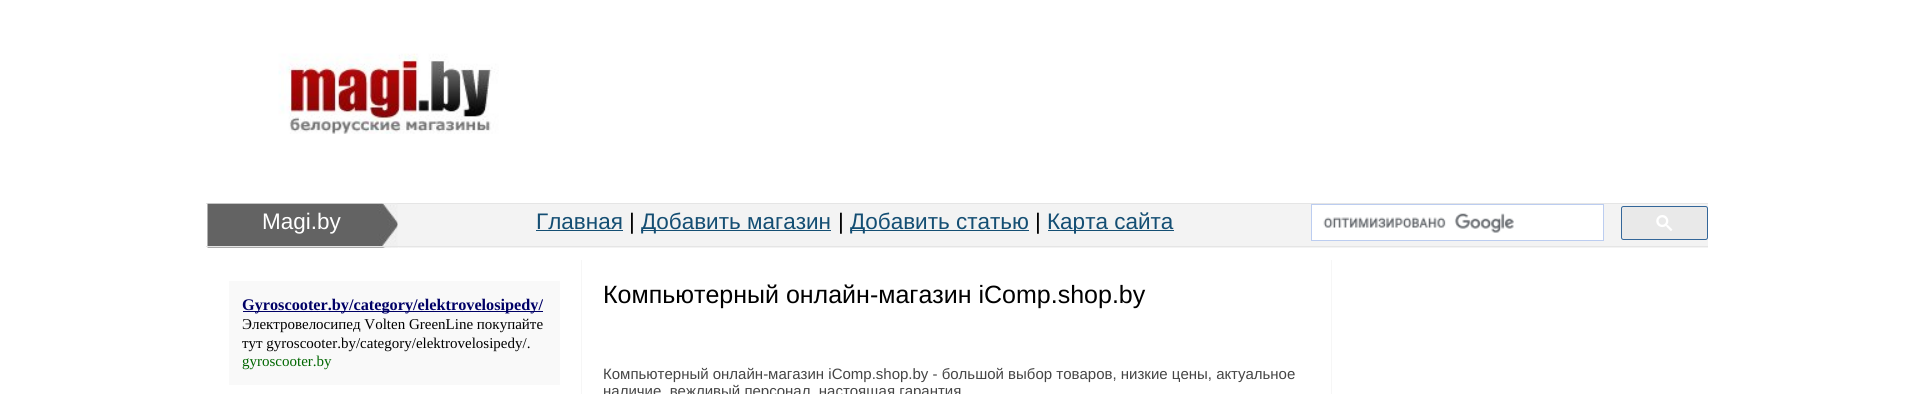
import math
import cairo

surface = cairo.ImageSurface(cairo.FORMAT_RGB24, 1913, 394)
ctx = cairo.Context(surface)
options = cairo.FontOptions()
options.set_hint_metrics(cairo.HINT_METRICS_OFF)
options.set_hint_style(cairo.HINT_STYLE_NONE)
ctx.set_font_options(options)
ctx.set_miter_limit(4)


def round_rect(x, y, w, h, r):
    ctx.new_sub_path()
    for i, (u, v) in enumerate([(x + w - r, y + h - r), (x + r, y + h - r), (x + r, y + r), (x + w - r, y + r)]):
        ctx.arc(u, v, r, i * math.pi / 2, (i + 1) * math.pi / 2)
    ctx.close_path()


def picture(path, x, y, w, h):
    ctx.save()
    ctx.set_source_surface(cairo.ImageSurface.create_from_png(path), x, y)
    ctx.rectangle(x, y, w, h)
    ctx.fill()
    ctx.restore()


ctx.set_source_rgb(1, 1, 1)
ctx.paint()
picture("img1.png", 278, 53, 221, 81)
ctx.set_source_rgb(0.898, 0.898, 0.898)
ctx.rectangle(206, 203, 1502, 1)
ctx.fill()
ctx.set_source_rgb(0.953, 0.953, 0.953)
ctx.rectangle(208, 204, 1500, 44)
ctx.fill()
picture("img2.png", 207, 203, 191, 45)
ctx.set_source_rgb(0.898, 0.898, 0.898)
ctx.rectangle(398, 246, 1310, 1)
ctx.fill()
ctx.set_source_rgb(0.961, 0.961, 0.961)
ctx.rectangle(398, 246, 1, 2)
ctx.fill()
ctx.set_source_rgb(0.898, 0.898, 0.898)
ctx.rectangle(206, 246, 193, 1)
ctx.fill()
ctx.select_font_face("Liberation Sans")
ctx.set_font_size(22.5)
ctx.set_source_rgb(1, 1, 1)
ctx.move_to(262, 229)
ctx.show_text("Magi.by")
ctx.rectangle(1311.5, 204.5, 292, 36)
ctx.fill_preserve()
ctx.set_source_rgb(0.737, 0.804, 0.941)
ctx.set_line_width(1)
ctx.stroke()
picture("img3.png", 1323, 213, 191, 20)
ctx.set_source_rgb(0.914, 0.914, 0.914)
round_rect(1621.5, 206.5, 86, 33, 2)
ctx.fill_preserve()
ctx.set_source_rgb(0.2, 0.4, 0.6)
ctx.stroke()
picture("img4.png", 1656, 215, 17, 16)
ctx.set_source_rgb(0.082, 0.306, 0.451)
ctx.move_to(536, 229)
ctx.show_text("Главная")
ctx.rectangle(536, 230, 87, 1)
ctx.fill()
ctx.set_source_rgb(0, 0, 0)
ctx.move_to(629, 229)
ctx.show_text("|")
ctx.set_source_rgb(0.082, 0.306, 0.451)
ctx.rectangle(641, 230, 190, 1)
ctx.fill()
ctx.move_to(641, 229)
ctx.show_text("Добавить магазин")
ctx.set_source_rgb(0, 0, 0)
ctx.move_to(838, 229)
ctx.show_text("|")
ctx.set_source_rgb(0.082, 0.306, 0.451)
ctx.rectangle(850, 230, 179, 1)
ctx.fill()
ctx.move_to(850, 229)
ctx.show_text("Добавить статью")
ctx.set_source_rgb(0, 0, 0)
ctx.move_to(1035, 229)
ctx.show_text("|")
ctx.set_source_rgb(0.082, 0.306, 0.451)
ctx.rectangle(1048, 230, 126, 1)
ctx.fill()
ctx.move_to(1047, 229)
ctx.show_text("Карта сайта")
ctx.set_source_rgb(0.961, 0.961, 0.961)
ctx.rectangle(581, 260, 1, 134)
ctx.fill()
ctx.set_source_rgb(0.973, 0.973, 0.973)
ctx.rectangle(229, 281, 331, 104)
ctx.fill()
ctx.set_source_rgb(0, 0, 0.4)
ctx.rectangle(243, 311, 300, 1)
ctx.fill()
ctx.select_font_face("Liberation Serif", cairo.FONT_SLANT_NORMAL, cairo.FONT_WEIGHT_BOLD)
ctx.set_font_size(16.25)
ctx.move_to(242, 310)
ctx.show_text("Gyroscooter.by/category/elektrovelosipedy/")
ctx.select_font_face("Liberation Serif")
ctx.set_font_size(15)
ctx.set_source_rgb(0, 0, 0)
ctx.move_to(242, 329)
ctx.show_text("Электровелосипед Volten GreenLine покупайте")
ctx.move_to(242, 348)
ctx.show_text("тут gyroscooter.by/category/elektrovelosipedy/.")
ctx.set_source_rgb(0, 0.4, 0)
ctx.move_to(242, 366)
ctx.show_text("gyroscooter.by")
ctx.set_source_rgb(0.961, 0.961, 0.961)
ctx.rectangle(1331, 260, 1, 134)
ctx.fill()
ctx.select_font_face("Liberation Sans")
ctx.set_font_size(25)
ctx.set_source_rgb(0, 0, 0)
ctx.move_to(603, 303)
ctx.show_text("Компьютерный онлайн-магазин iComp.shop.by")
ctx.set_font_size(15)
ctx.set_source_rgb(0.271, 0.271, 0.271)
ctx.move_to(603, 379)
ctx.show_text("Компьютерный онлайн-магазин iComp.shop.by - большой выбор товаров, низкие цены, актуальное")
ctx.move_to(603, 396)
ctx.show_text("наличие, вежливый персонал, настоящая гарантия")
surface.write_to_png("page.png")
